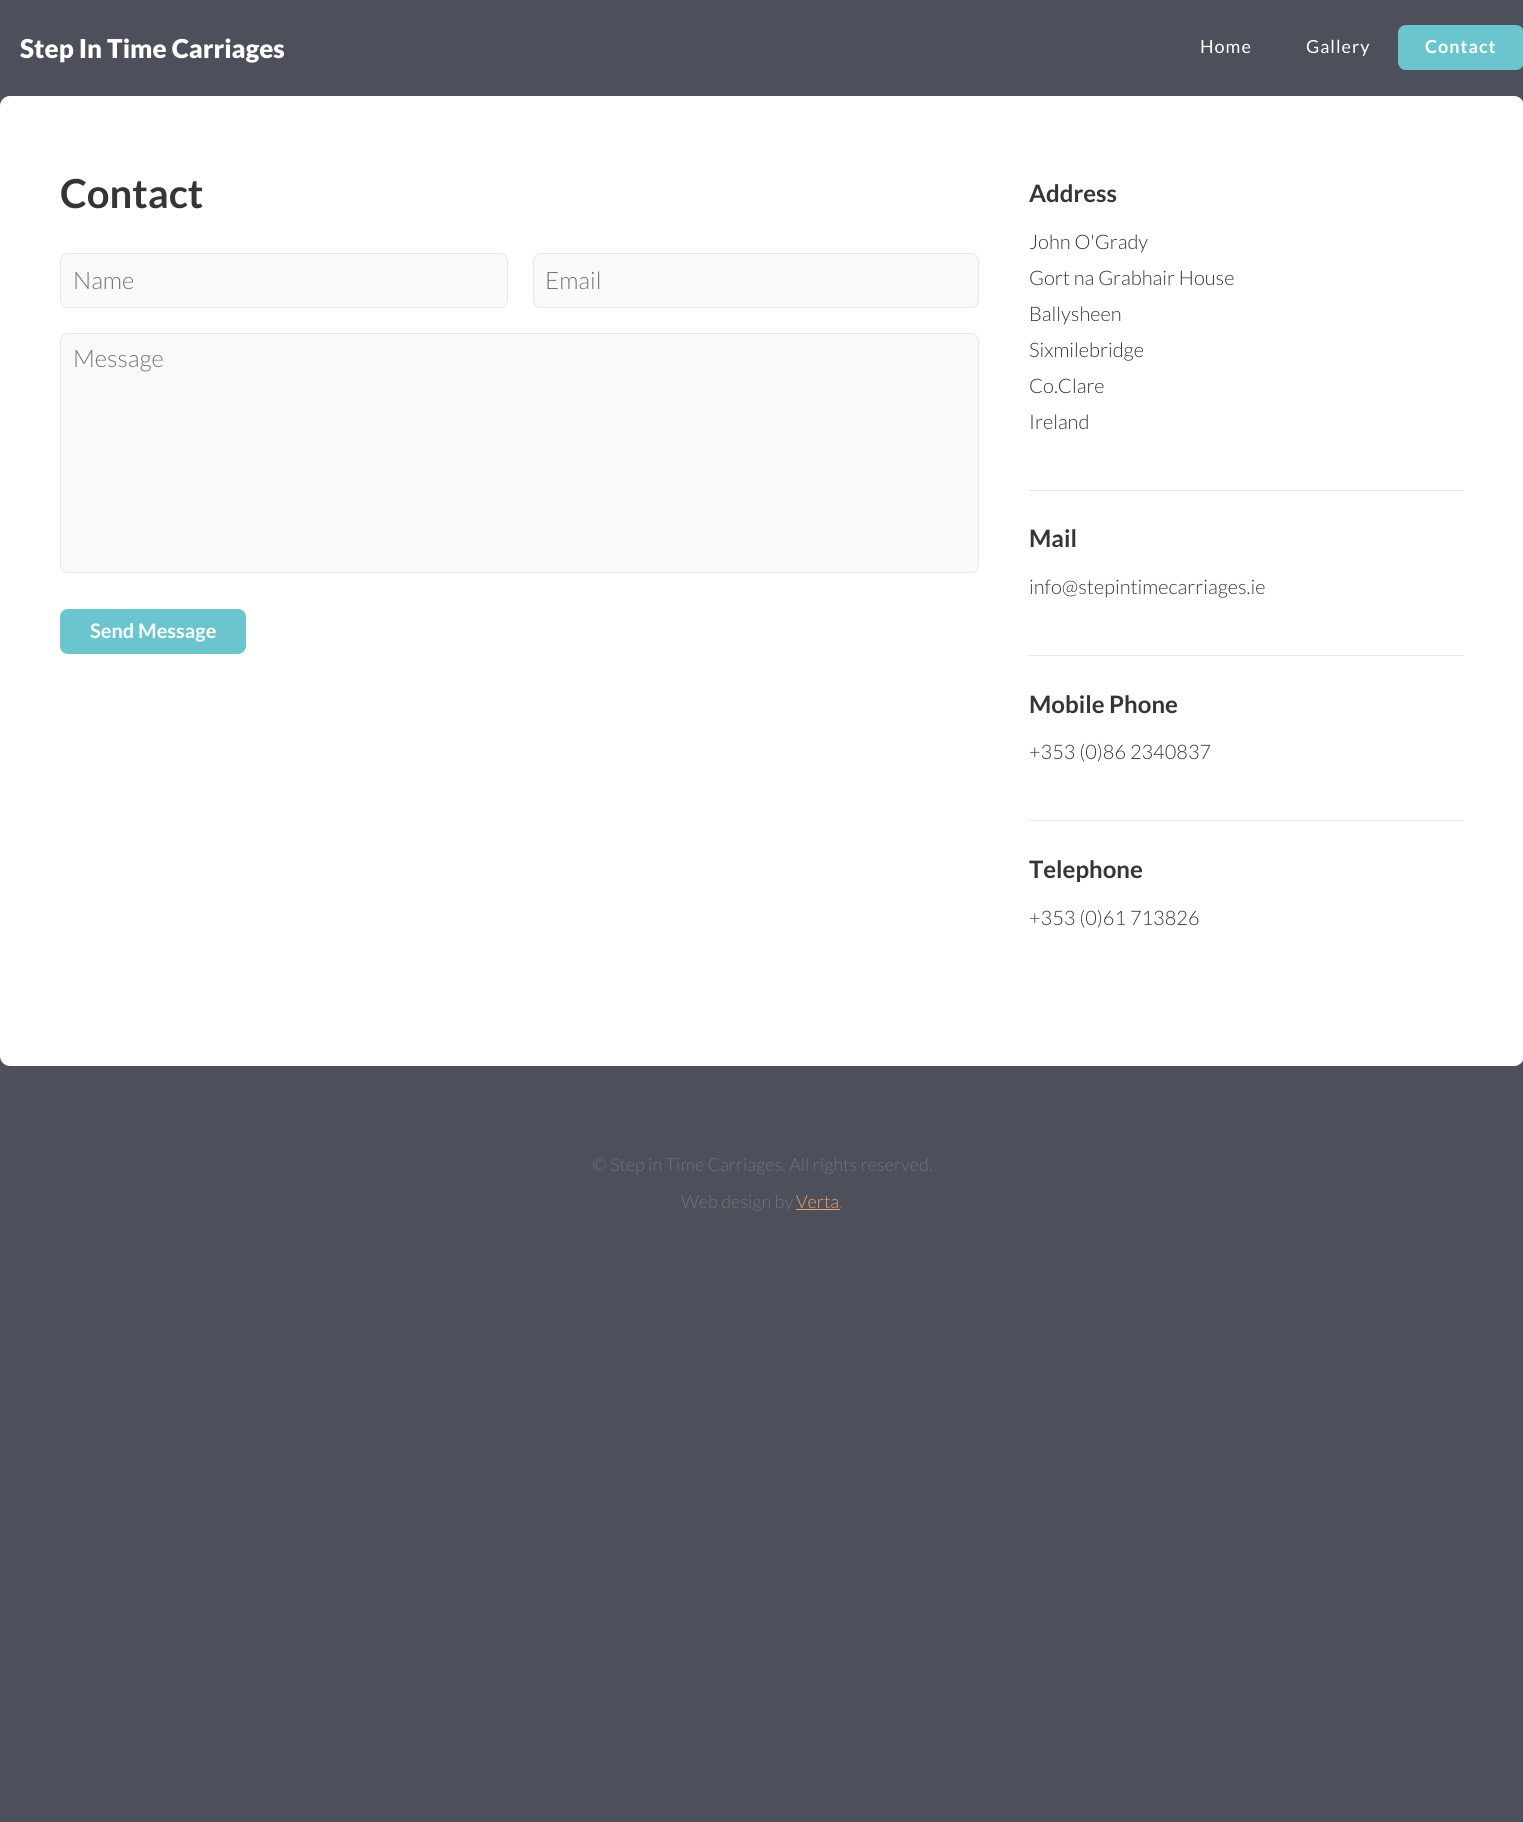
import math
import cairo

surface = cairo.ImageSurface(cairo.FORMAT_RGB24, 1523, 1822)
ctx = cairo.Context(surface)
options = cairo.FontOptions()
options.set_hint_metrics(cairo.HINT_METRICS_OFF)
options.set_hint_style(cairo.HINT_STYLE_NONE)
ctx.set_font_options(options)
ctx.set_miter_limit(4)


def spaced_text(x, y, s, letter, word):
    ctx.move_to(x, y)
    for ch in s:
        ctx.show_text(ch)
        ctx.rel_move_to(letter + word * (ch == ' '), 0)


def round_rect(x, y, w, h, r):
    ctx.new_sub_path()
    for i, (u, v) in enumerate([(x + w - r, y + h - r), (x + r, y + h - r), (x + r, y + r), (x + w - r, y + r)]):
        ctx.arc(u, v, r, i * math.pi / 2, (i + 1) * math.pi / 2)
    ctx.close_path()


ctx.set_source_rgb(0.302, 0.31, 0.353)
ctx.paint()
ctx.select_font_face("Lato Black")
ctx.set_font_size(26)
ctx.set_source_rgb(1, 1, 1)
ctx.move_to(20, 58)
ctx.show_text("Step In Time Carriages")
ctx.select_font_face("Lato")
ctx.set_font_size(18)
spaced_text(1200, 53, "Home", 1, 0)
spaced_text(1306, 53, "Gallery", 1, 0)
ctx.set_source_rgb(0.42, 0.773, 0.808)
round_rect(1398, 25, 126, 45, 8)
ctx.fill()
ctx.select_font_face("Lato", cairo.FONT_SLANT_NORMAL, cairo.FONT_WEIGHT_BOLD)
ctx.set_source_rgb(1, 1, 1)
spaced_text(1425, 53, "Contact", 1, 0)
round_rect(0, 96, 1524, 970, 10)
ctx.fill()
ctx.set_font_size(40)
ctx.set_source_rgb(0.208, 0.208, 0.208)
ctx.move_to(60, 208)
ctx.show_text("Contact")
ctx.set_source_rgb(0.98, 0.98, 0.98)
round_rect(60.5, 253.5, 447, 54, 7.5)
ctx.fill_preserve()
ctx.set_source_rgb(0.91, 0.91, 0.91)
ctx.set_line_width(1)
ctx.stroke()
ctx.select_font_face("Lato Light")
ctx.set_font_size(24)
ctx.set_source_rgb(0.459, 0.459, 0.459)
ctx.move_to(73, 289)
ctx.show_text("Name")
ctx.set_source_rgb(0.98, 0.98, 0.98)
round_rect(533.5, 253.5, 445, 54, 7.5)
ctx.fill_preserve()
ctx.set_source_rgb(0.91, 0.91, 0.91)
ctx.stroke()
ctx.set_source_rgb(0.459, 0.459, 0.459)
ctx.move_to(545, 289)
ctx.show_text("Email")
ctx.set_source_rgb(0.98, 0.98, 0.98)
round_rect(60.5, 333.5, 918, 239, 7.5)
ctx.fill_preserve()
ctx.set_source_rgb(0.91, 0.91, 0.91)
ctx.stroke()
ctx.set_source_rgb(0.459, 0.459, 0.459)
ctx.move_to(73, 367)
ctx.show_text("Message")
ctx.set_source_rgb(0.42, 0.773, 0.808)
round_rect(60, 609, 186, 45, 8)
ctx.fill()
ctx.select_font_face("Lato", cairo.FONT_SLANT_NORMAL, cairo.FONT_WEIGHT_BOLD)
ctx.set_font_size(20)
ctx.set_source_rgb(1, 1, 1)
ctx.move_to(90, 638)
ctx.show_text("Send Message")
ctx.set_font_size(24)
ctx.set_source_rgb(0.208, 0.208, 0.208)
ctx.move_to(1029, 202)
ctx.show_text("Address")
ctx.select_font_face("Lato Light")
ctx.set_font_size(20)
ctx.move_to(1029, 249)
ctx.show_text("John O'Grady")
ctx.move_to(1029, 285)
ctx.show_text("Gort na Grabhair House")
ctx.move_to(1029, 321)
ctx.show_text("Ballysheen")
ctx.move_to(1029, 357)
ctx.show_text("Sixmilebridge")
ctx.move_to(1029, 393)
ctx.show_text("Co.Clare")
ctx.move_to(1029, 429)
ctx.show_text("Ireland")
ctx.set_source_rgb(0.902, 0.902, 0.902)
ctx.rectangle(1029, 490, 435, 1)
ctx.fill()
ctx.select_font_face("Lato", cairo.FONT_SLANT_NORMAL, cairo.FONT_WEIGHT_BOLD)
ctx.set_font_size(24)
ctx.set_source_rgb(0.208, 0.208, 0.208)
ctx.move_to(1029, 547)
ctx.show_text("Mail")
ctx.select_font_face("Lato Light")
ctx.set_font_size(20)
ctx.move_to(1029, 594)
ctx.show_text("info@stepintimecarriages.ie")
ctx.set_source_rgb(0.902, 0.902, 0.902)
ctx.rectangle(1029, 655, 435, 1)
ctx.fill()
ctx.select_font_face("Lato", cairo.FONT_SLANT_NORMAL, cairo.FONT_WEIGHT_BOLD)
ctx.set_font_size(24)
ctx.set_source_rgb(0.208, 0.208, 0.208)
ctx.move_to(1029, 713)
ctx.show_text("Mobile Phone")
ctx.select_font_face("Lato Light")
ctx.set_font_size(20)
ctx.move_to(1029, 759)
ctx.show_text("+353 (0)86 2340837")
ctx.set_source_rgb(0.902, 0.902, 0.902)
ctx.rectangle(1029, 820, 435, 1)
ctx.fill()
ctx.select_font_face("Lato", cairo.FONT_SLANT_NORMAL, cairo.FONT_WEIGHT_BOLD)
ctx.set_font_size(24)
ctx.set_source_rgb(0.208, 0.208, 0.208)
ctx.move_to(1029, 878)
ctx.show_text("Telephone")
ctx.select_font_face("Lato Light")
ctx.set_font_size(20)
ctx.move_to(1029, 925)
ctx.show_text("+353 (0)61 713826")
ctx.set_font_size(18)
ctx.set_source_rgb(0.443, 0.447, 0.482)
ctx.move_to(592, 1171)
ctx.show_text("© Step in Time Carriages. All rights reserved.")
ctx.move_to(681, 1208)
ctx.show_text("Web design by")
ctx.set_source_rgb(0.945, 0.635, 0.404)
ctx.move_to(796, 1208)
ctx.show_text("Verta")
ctx.set_source_rgb(0.443, 0.447, 0.482)
ctx.move_to(839, 1208)
ctx.show_text(".")
ctx.set_source_rgb(0.945, 0.635, 0.404)
ctx.rectangle(796, 1209, 44, 1)
ctx.fill()
surface.write_to_png("page.png")
